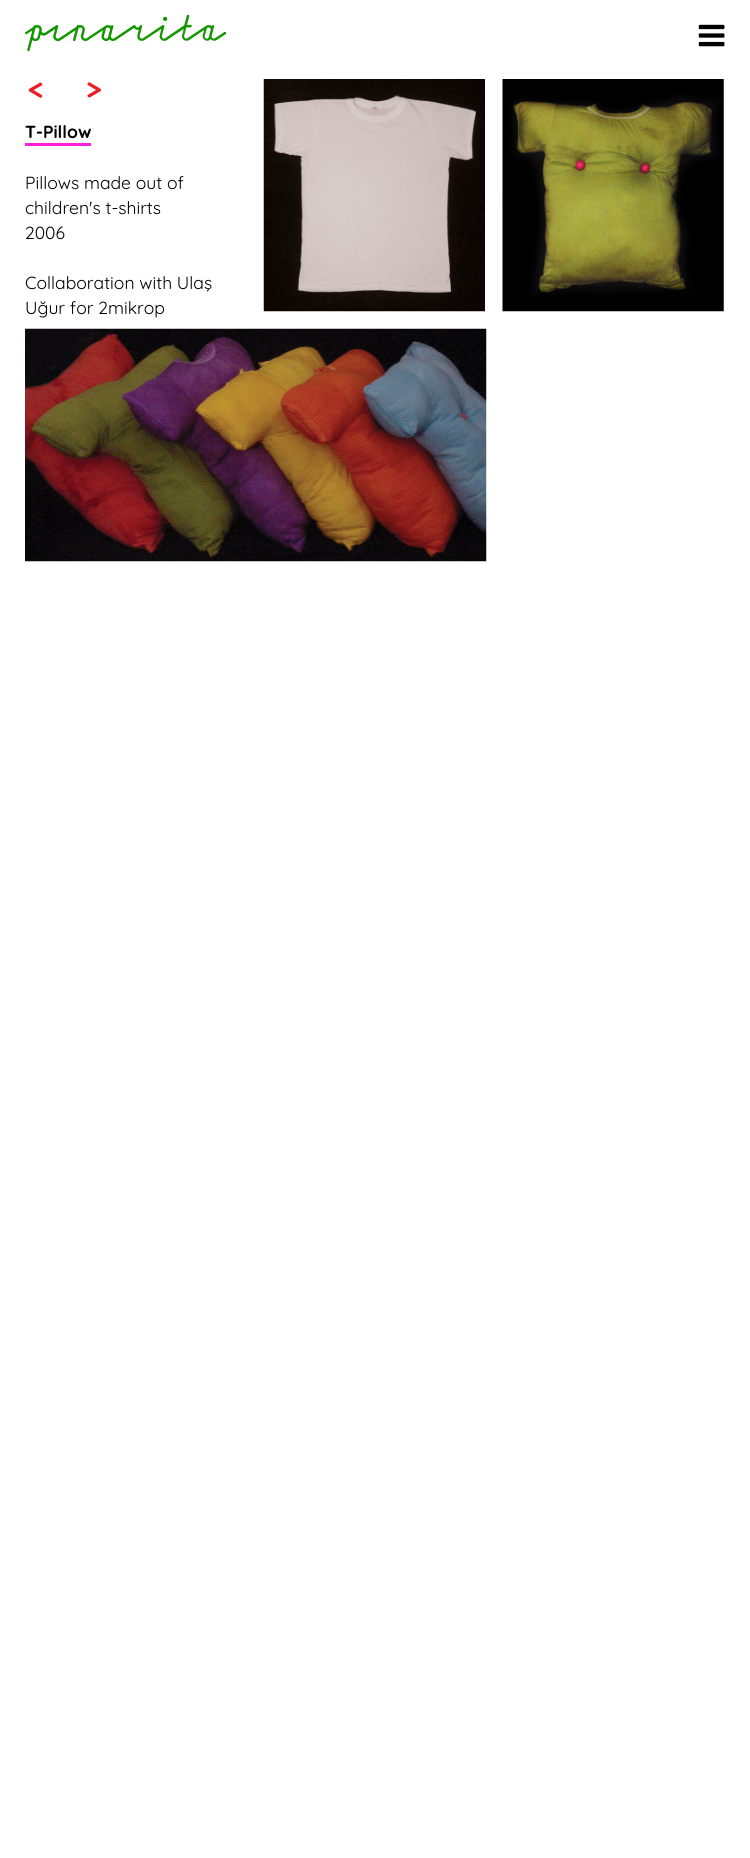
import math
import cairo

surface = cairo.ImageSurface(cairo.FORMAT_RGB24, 750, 1858)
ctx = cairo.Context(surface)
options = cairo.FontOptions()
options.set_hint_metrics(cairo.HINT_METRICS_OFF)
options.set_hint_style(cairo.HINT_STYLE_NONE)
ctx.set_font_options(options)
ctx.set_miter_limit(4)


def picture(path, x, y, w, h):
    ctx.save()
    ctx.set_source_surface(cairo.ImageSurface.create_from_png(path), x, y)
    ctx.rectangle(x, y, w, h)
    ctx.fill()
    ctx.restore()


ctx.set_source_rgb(1, 1, 1)
ctx.paint()
picture("img1.png", 25, 15, 201, 36)
picture("img2.png", 698, 24, 27, 23)
ctx.select_font_face("Quicksand", cairo.FONT_SLANT_NORMAL, cairo.FONT_WEIGHT_BOLD)
ctx.set_font_size(30)
ctx.set_source_rgb(0.929, 0.114, 0.141)
ctx.move_to(28, 100)
ctx.show_text("<")
ctx.move_to(86, 100)
ctx.show_text(">")
ctx.set_source_rgb(1, 0.122, 0.855)
ctx.rectangle(25, 143, 66, 3)
ctx.fill()
ctx.set_font_size(17.5)
ctx.set_source_rgb(0, 0, 0)
ctx.move_to(25, 138)
ctx.show_text("T-Pillow")
ctx.select_font_face("Quicksand")
ctx.move_to(25, 189)
ctx.show_text("Pillows made out of")
ctx.move_to(25, 214)
ctx.show_text("children's t-shirts")
ctx.move_to(25, 239)
ctx.show_text("2006")
ctx.move_to(25, 289)
ctx.show_text("Collaboration with Ulaş")
ctx.move_to(25, 314)
ctx.show_text("Uğur for 2mikrop")
picture("img3.png", 263, 79, 222, 233)
picture("img4.png", 502, 79, 222, 233)
picture("img5.png", 25, 328, 462, 234)
surface.write_to_png("page.png")
